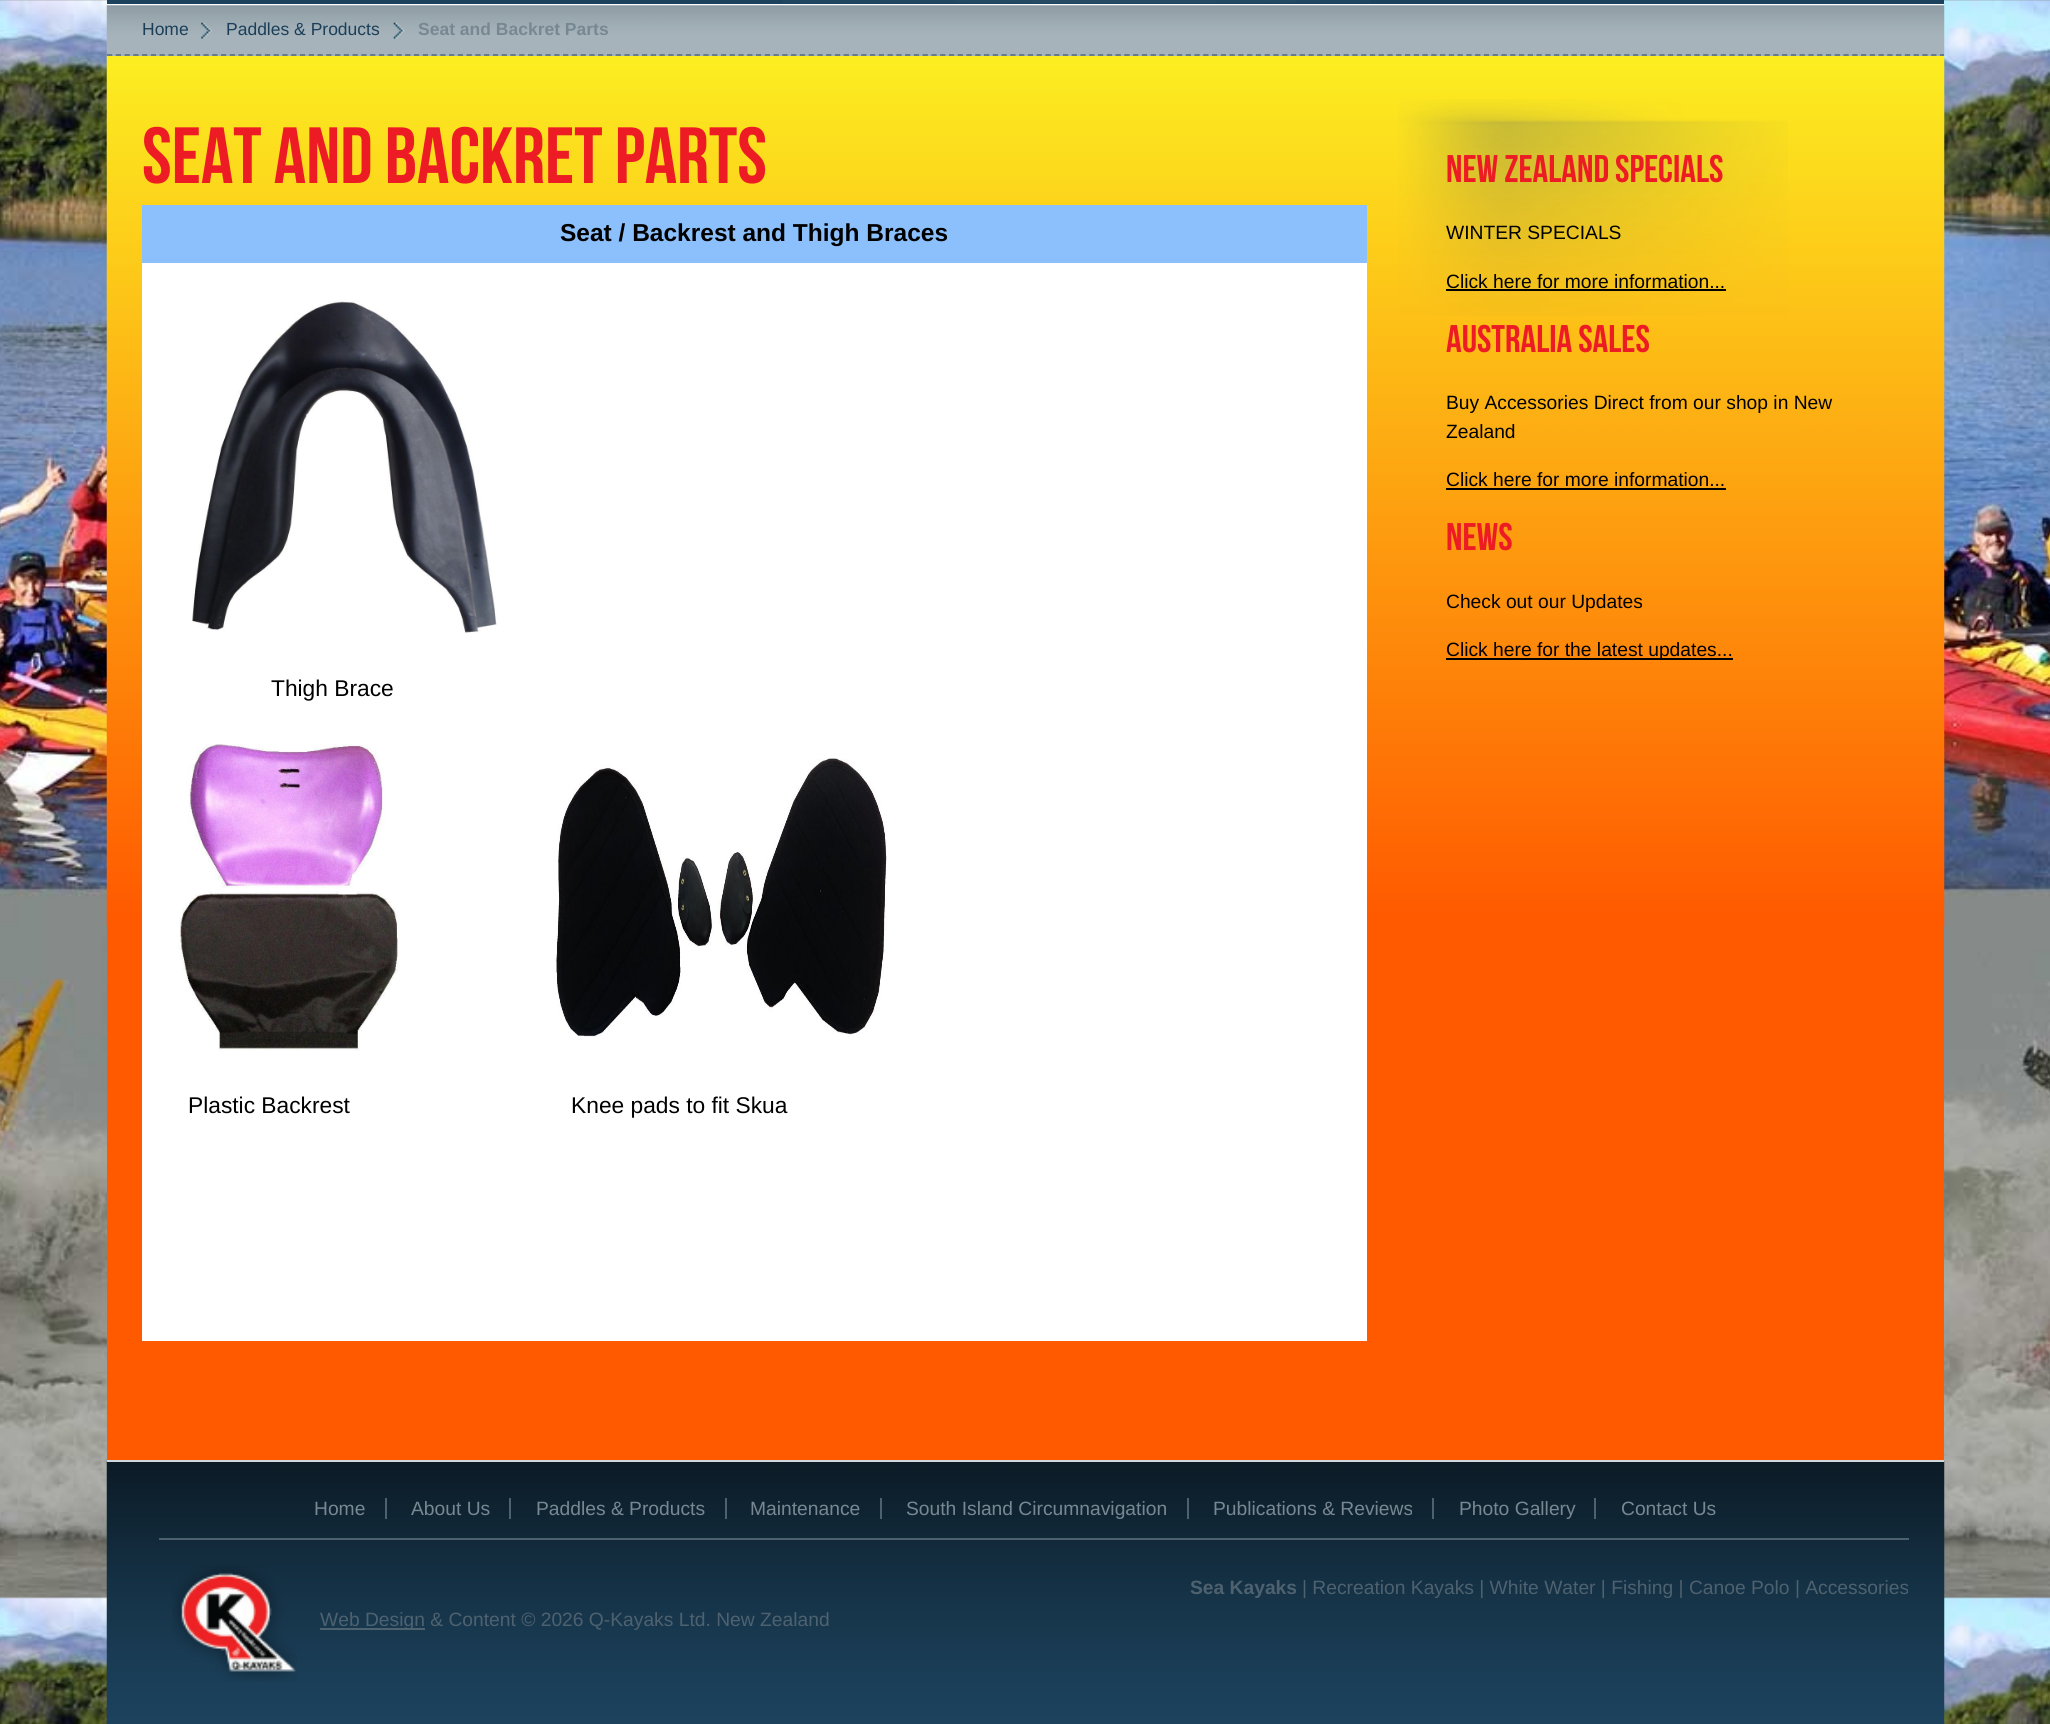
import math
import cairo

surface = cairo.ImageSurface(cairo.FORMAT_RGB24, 2050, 1724)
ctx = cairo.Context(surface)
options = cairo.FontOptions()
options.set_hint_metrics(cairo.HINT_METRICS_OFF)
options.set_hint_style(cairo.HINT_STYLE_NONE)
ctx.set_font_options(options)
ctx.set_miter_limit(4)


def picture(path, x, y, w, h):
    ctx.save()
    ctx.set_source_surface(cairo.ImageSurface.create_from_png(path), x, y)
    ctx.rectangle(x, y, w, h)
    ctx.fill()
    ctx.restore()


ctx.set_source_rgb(1, 1, 1)
ctx.paint()
picture("img1.png", 0, 0, 2050, 1724)
ctx.set_source_rgb(0.11, 0.259, 0.365)
ctx.rectangle(107, 0, 1837, 4)
ctx.fill()
ctx.set_source_rgb(1, 1, 1)
ctx.rectangle(107, 4, 1837, 2)
ctx.fill()
picture("img2.png", 783, 0, 587, 3)
picture("img3.png", 106, 5, 1839, 51)
ctx.new_path()
ctx.move_to(107, 55)
ctx.line_to(1944, 55)
ctx.set_source_rgb(0.373, 0.459, 0.522)
ctx.set_line_width(1.8)
ctx.set_dash([5.25, 3.52])
ctx.stroke()
ctx.select_font_face("Liberation Sans")
ctx.set_font_size(17.5)
ctx.set_source_rgb(0.106, 0.247, 0.345)
ctx.move_to(142, 35)
ctx.show_text("Home")
picture("img4.png", 201, 22, 11, 17)
ctx.move_to(226, 35)
ctx.show_text("Paddles & Products")
picture("img5.png", 393, 22, 12, 17)
ctx.select_font_face("Liberation Sans", cairo.FONT_SLANT_NORMAL, cairo.FONT_WEIGHT_BOLD)
ctx.set_source_rgb(0.471, 0.533, 0.573)
ctx.move_to(418, 35)
ctx.show_text("Seat and Backret Parts")
ctx.set_source_rgb(1, 0.353, 0)
ctx.rectangle(107, 925, 1837, 535)
ctx.fill()
picture("img6.png", 106, 56, 1839, 870)
ctx.select_font_face("Bebas Neue")
ctx.set_font_size(79.5)
ctx.set_source_rgb(0.929, 0.11, 0.141)
ctx.move_to(142, 183)
ctx.show_text("Seat and Backret Parts")
ctx.set_source_rgb(1, 1, 1)
ctx.rectangle(142, 263, 1225, 1078)
ctx.fill()
ctx.set_source_rgb(0.545, 0.753, 0.988)
ctx.rectangle(142, 205, 1225, 58)
ctx.fill()
ctx.select_font_face("Liberation Sans", cairo.FONT_SLANT_NORMAL, cairo.FONT_WEIGHT_BOLD)
ctx.set_font_size(24.5)
ctx.set_source_rgb(0, 0, 0)
ctx.move_to(560, 241)
ctx.show_text("Seat / Backrest and Thigh Braces")
picture("img7.png", 192, 301, 305, 332)
ctx.select_font_face("Liberation Sans")
ctx.set_font_size(22.75)
ctx.move_to(271, 696)
ctx.show_text("Thigh Brace")
picture("img8.png", 179, 744, 219, 307)
picture("img9.png", 555, 758, 332, 279)
ctx.move_to(188, 1113)
ctx.show_text("Plastic Backrest                                   Knee pads to fit Skua")
picture("img10.png", 1398, 99, 390, 217)
ctx.select_font_face("Bebas Neue")
ctx.set_font_size(38.5)
ctx.set_source_rgb(0.929, 0.11, 0.141)
ctx.move_to(1446, 182)
ctx.show_text("NEW ZEALAND SPECIALS")
ctx.select_font_face("Liberation Sans")
ctx.set_font_size(19.25)
ctx.set_source_rgb(0, 0, 0)
ctx.move_to(1446, 239)
ctx.show_text("WINTER SPECIALS")
ctx.move_to(1446, 288)
ctx.show_text("Click here for more information...")
ctx.rectangle(1446, 289, 280, 2)
ctx.fill()
ctx.select_font_face("Bebas Neue")
ctx.set_font_size(38.5)
ctx.set_source_rgb(0.929, 0.11, 0.141)
ctx.move_to(1446, 352)
ctx.show_text("Australia Sales")
ctx.select_font_face("Liberation Sans")
ctx.set_font_size(19.25)
ctx.set_source_rgb(0, 0, 0)
ctx.move_to(1446, 409)
ctx.show_text("Buy Accessories Direct from our shop in New")
ctx.move_to(1446, 438)
ctx.show_text("Zealand")
ctx.move_to(1446, 486)
ctx.show_text("Click here for more information...")
ctx.rectangle(1446, 488, 280, 2)
ctx.fill()
ctx.select_font_face("Bebas Neue")
ctx.set_font_size(38.5)
ctx.set_source_rgb(0.929, 0.11, 0.141)
ctx.move_to(1446, 550)
ctx.show_text("News")
ctx.select_font_face("Liberation Sans")
ctx.set_font_size(19.25)
ctx.set_source_rgb(0, 0, 0)
ctx.move_to(1446, 608)
ctx.show_text("Check out our Updates")
ctx.rectangle(1446, 658, 287, 2)
ctx.fill()
ctx.move_to(1446, 656)
ctx.show_text("Click here for the latest updates...")
picture("img11.png", 106, 1461, 1839, 263)
ctx.set_source_rgb(0.816, 0.847, 0.867)
ctx.rectangle(107, 1460, 1837, 2)
ctx.fill()
ctx.set_source_rgb(0.471, 0.533, 0.573)
ctx.move_to(314, 1515)
ctx.show_text("Home")
ctx.set_source_rgb(0.306, 0.38, 0.435)
ctx.rectangle(385, 1498, 2, 21)
ctx.fill()
ctx.set_source_rgb(0.471, 0.533, 0.573)
ctx.move_to(411, 1515)
ctx.show_text("About Us")
ctx.set_source_rgb(0.306, 0.38, 0.435)
ctx.rectangle(509, 1498, 2, 21)
ctx.fill()
ctx.set_source_rgb(0.471, 0.533, 0.573)
ctx.move_to(536, 1515)
ctx.show_text("Paddles & Products")
ctx.set_source_rgb(0.306, 0.38, 0.435)
ctx.rectangle(725, 1498, 2, 21)
ctx.fill()
ctx.set_source_rgb(0.471, 0.533, 0.573)
ctx.move_to(750, 1515)
ctx.show_text("Maintenance")
ctx.set_source_rgb(0.306, 0.38, 0.435)
ctx.rectangle(880, 1498, 2, 21)
ctx.fill()
ctx.set_source_rgb(0.471, 0.533, 0.573)
ctx.move_to(906, 1515)
ctx.show_text("South Island Circumnavigation")
ctx.set_source_rgb(0.306, 0.38, 0.435)
ctx.rectangle(1187, 1498, 2, 21)
ctx.fill()
ctx.set_source_rgb(0.471, 0.533, 0.573)
ctx.move_to(1213, 1515)
ctx.show_text("Publications & Reviews")
ctx.set_source_rgb(0.306, 0.38, 0.435)
ctx.rectangle(1432, 1498, 2, 21)
ctx.fill()
ctx.set_source_rgb(0.471, 0.533, 0.573)
ctx.move_to(1459, 1515)
ctx.show_text("Photo Gallery")
ctx.set_source_rgb(0.306, 0.38, 0.435)
ctx.rectangle(1594, 1498, 2, 21)
ctx.fill()
ctx.set_source_rgb(0.471, 0.533, 0.573)
ctx.move_to(1621, 1515)
ctx.show_text("Contact Us")
ctx.set_source_rgb(0.298, 0.376, 0.435)
ctx.rectangle(159, 1538, 1750, 2)
ctx.fill()
picture("img12.png", 172, 1565, 125, 117)
ctx.select_font_face("Liberation Sans", cairo.FONT_SLANT_NORMAL, cairo.FONT_WEIGHT_BOLD)
ctx.set_source_rgb(0.306, 0.38, 0.435)
ctx.move_to(1190, 1594)
ctx.show_text("Sea Kayaks")
ctx.select_font_face("Liberation Sans")
ctx.move_to(1302, 1594)
ctx.show_text("| Recreation Kayaks | White Water | Fishing | Canoe Polo | Accessories")
ctx.rectangle(320, 1628, 105, 2)
ctx.fill()
ctx.move_to(320, 1626)
ctx.show_text("Web Design & Content © 2026 Q-Kayaks Ltd. New Zealand")
surface.write_to_png("page.png")
